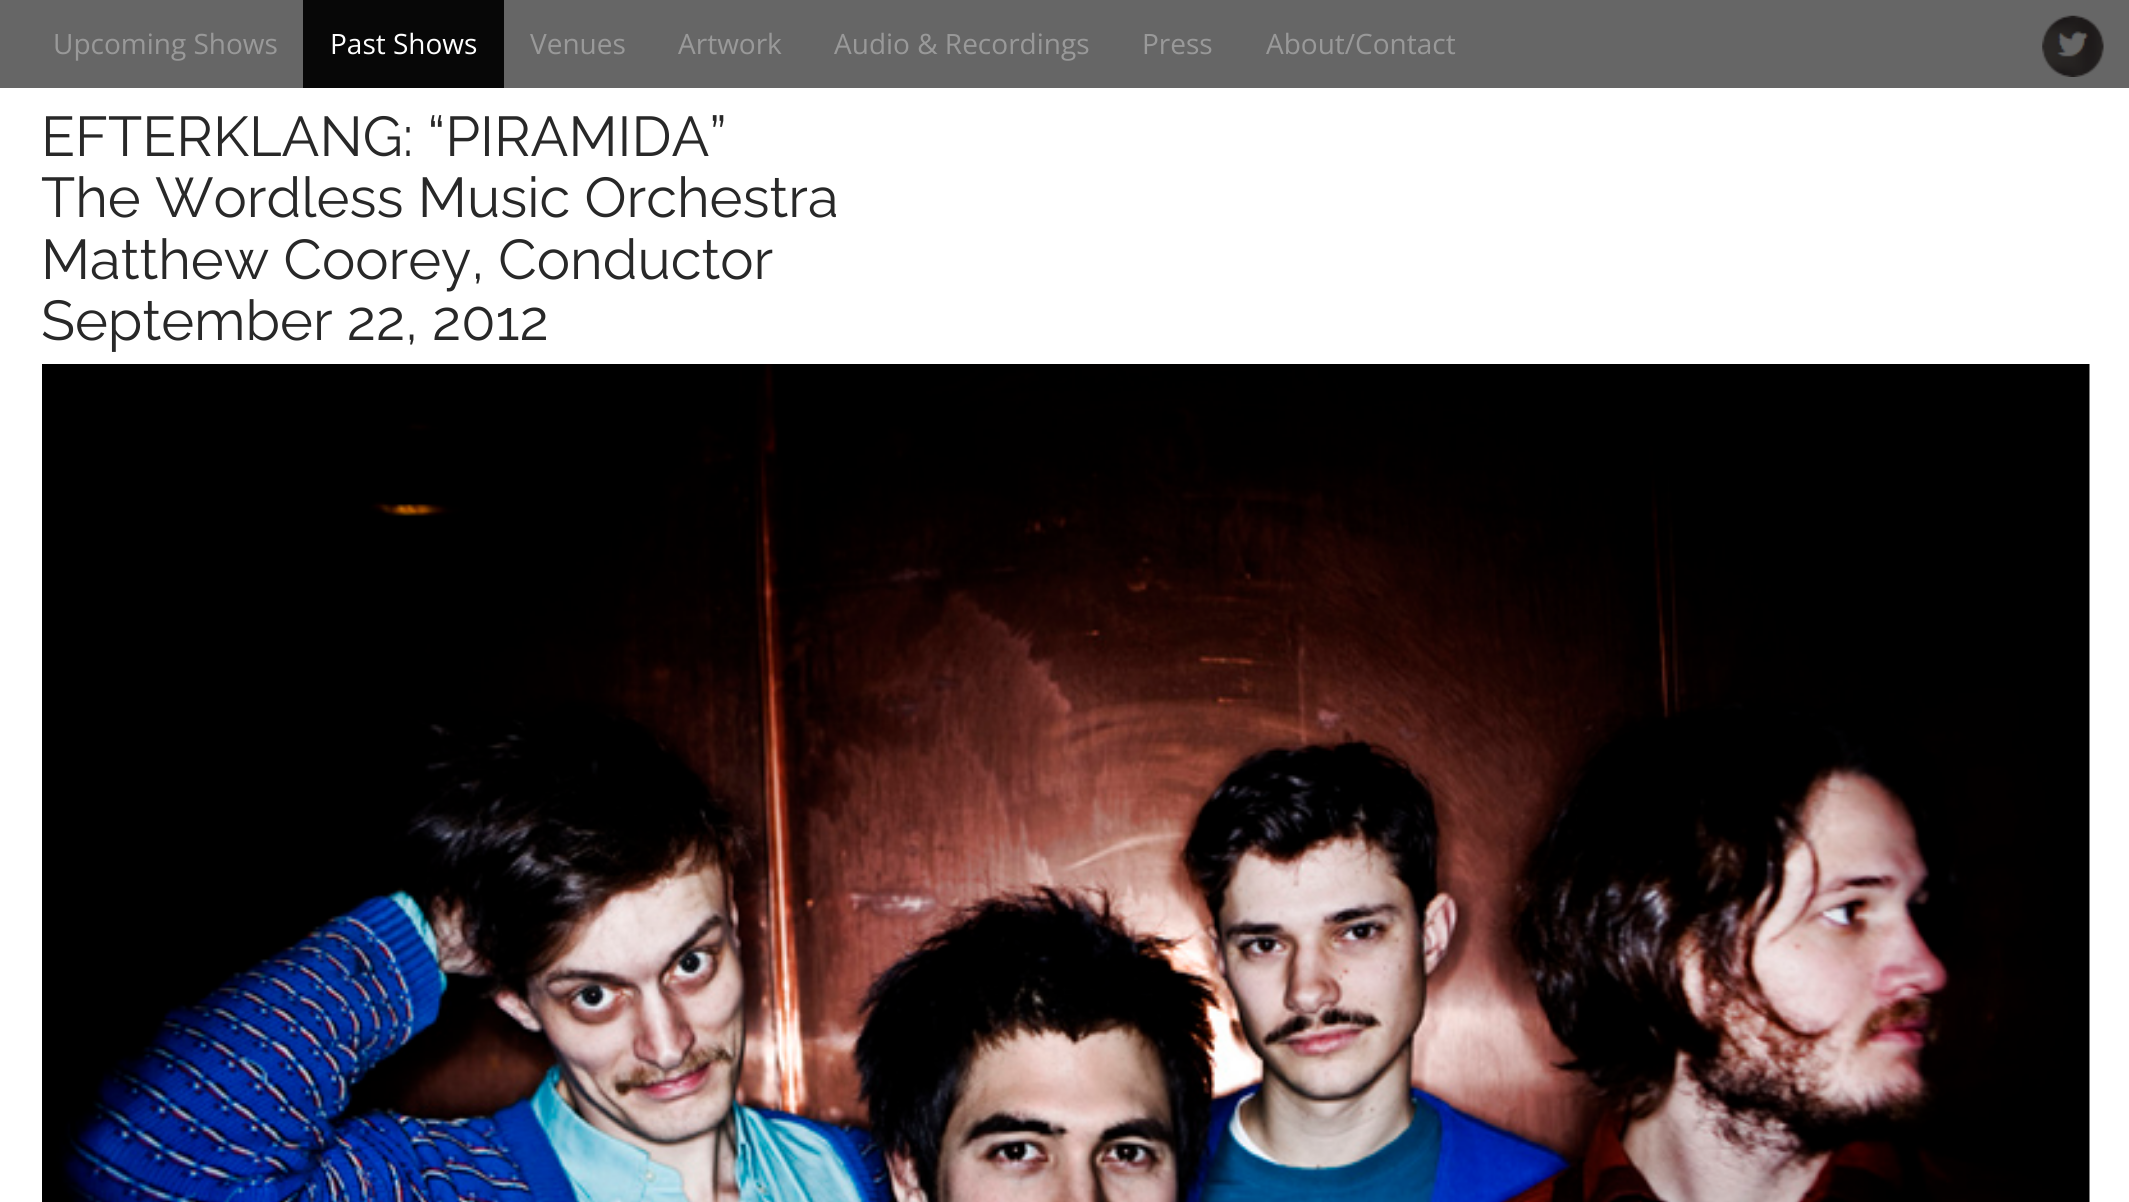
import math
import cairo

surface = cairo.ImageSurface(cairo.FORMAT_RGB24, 2129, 1202)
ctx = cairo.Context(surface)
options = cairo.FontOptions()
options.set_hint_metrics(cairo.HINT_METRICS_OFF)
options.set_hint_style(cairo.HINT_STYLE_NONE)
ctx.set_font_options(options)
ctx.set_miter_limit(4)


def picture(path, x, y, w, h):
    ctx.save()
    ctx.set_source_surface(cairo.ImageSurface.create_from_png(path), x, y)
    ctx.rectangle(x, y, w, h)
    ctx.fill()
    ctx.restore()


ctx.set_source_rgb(1, 1, 1)
ctx.paint()
ctx.set_source_rgb(0.4, 0.4, 0.4)
ctx.rectangle(0, 0, 2129, 88)
ctx.fill()
ctx.select_font_face("Open Sans")
ctx.set_font_size(28)
ctx.set_source_rgb(0.6, 0.6, 0.6)
ctx.move_to(53, 54)
ctx.show_text("Upcoming Shows")
ctx.set_source_rgb(0.031, 0.031, 0.031)
ctx.rectangle(303, 0, 201, 88)
ctx.fill()
ctx.set_source_rgb(1, 1, 1)
ctx.move_to(330, 54)
ctx.show_text("Past Shows")
ctx.set_source_rgb(0.6, 0.6, 0.6)
ctx.move_to(530, 54)
ctx.show_text("Venues")
ctx.move_to(678, 54)
ctx.show_text("Artwork")
ctx.move_to(834, 54)
ctx.show_text("Audio & Recordings")
ctx.move_to(1142, 54)
ctx.show_text("Press")
ctx.move_to(1266, 54)
ctx.show_text("About/Contact")
picture("img1.png", 2042, 15, 62, 62)
ctx.select_font_face("Raleway Thin")
ctx.set_font_size(56)
ctx.set_source_rgb(0.157, 0.157, 0.157)
ctx.move_to(41, 156)
ctx.show_text("EFTERKLANG: “PIRAMIDA”")
ctx.move_to(41, 217)
ctx.show_text("The Wordless Music Orchestra")
ctx.move_to(41, 279)
ctx.show_text("Matthew Coorey, Conductor")
ctx.move_to(41, 340)
ctx.show_text("September 22, 2012")
picture("img2.png", 42, 364, 2048, 838)
surface.write_to_png("page.png")
